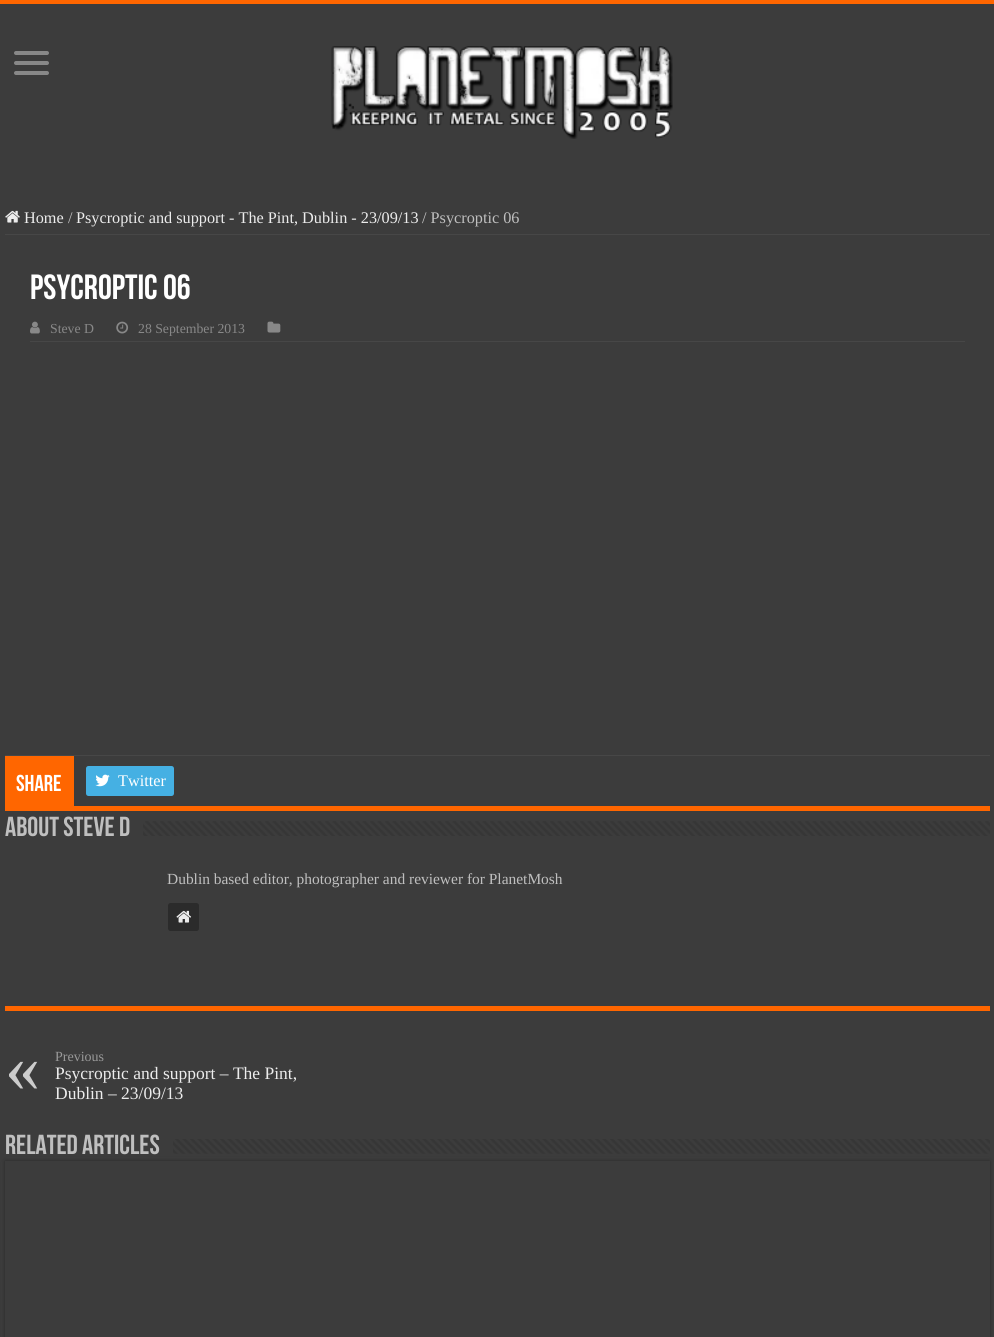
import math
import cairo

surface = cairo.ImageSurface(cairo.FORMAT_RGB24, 994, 1337)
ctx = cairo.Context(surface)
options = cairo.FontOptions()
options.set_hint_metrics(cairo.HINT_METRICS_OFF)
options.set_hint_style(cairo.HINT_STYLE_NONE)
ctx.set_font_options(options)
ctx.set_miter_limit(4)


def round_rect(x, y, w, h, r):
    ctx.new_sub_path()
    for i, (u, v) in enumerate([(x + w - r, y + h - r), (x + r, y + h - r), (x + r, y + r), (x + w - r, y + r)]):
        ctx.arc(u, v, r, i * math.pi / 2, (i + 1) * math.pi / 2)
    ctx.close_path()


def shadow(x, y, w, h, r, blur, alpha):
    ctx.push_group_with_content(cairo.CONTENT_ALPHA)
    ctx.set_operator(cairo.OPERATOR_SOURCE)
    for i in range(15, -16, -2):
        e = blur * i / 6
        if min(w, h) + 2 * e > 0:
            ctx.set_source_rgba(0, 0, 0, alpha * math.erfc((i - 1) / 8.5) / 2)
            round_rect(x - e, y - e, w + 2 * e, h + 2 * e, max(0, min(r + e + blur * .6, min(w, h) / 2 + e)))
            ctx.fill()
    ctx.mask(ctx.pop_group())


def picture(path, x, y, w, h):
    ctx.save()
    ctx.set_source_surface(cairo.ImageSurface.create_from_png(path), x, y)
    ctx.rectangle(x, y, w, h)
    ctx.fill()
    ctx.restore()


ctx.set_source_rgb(0.235, 0.235, 0.235)
ctx.paint()
ctx.set_source_rgb(1, 0.4, 0)
ctx.rectangle(0, 0, 994, 4)
ctx.fill()
ctx.set_source_rgb(0.533, 0.533, 0.533)
round_rect(14, 51, 35, 4, 2)
ctx.fill()
round_rect(14, 61, 35, 4, 2)
ctx.fill()
round_rect(14, 71, 35, 4, 2)
ctx.fill()
picture("img1.png", 331, 46, 342, 93)
ctx.set_source_rgb(0.278, 0.278, 0.278)
ctx.rectangle(5, 234, 985, 1)
ctx.fill()
picture("img2.png", 5, 210, 15, 13)
ctx.select_font_face("Liberation Serif")
ctx.set_font_size(16.25)
ctx.set_source_rgb(0.925, 0.925, 0.925)
ctx.move_to(24, 223)
ctx.show_text("Home")
ctx.set_source_rgb(0.749, 0.749, 0.749)
ctx.move_to(68, 223)
ctx.show_text("/")
ctx.set_source_rgb(0.925, 0.925, 0.925)
ctx.move_to(76, 223)
ctx.show_text("Psycroptic and support - The Pint, Dublin - 23/09/13")
ctx.set_source_rgb(0.749, 0.749, 0.749)
ctx.move_to(422, 223)
ctx.show_text("/ Psycroptic 06")
ctx.set_source_rgb(1, 0.4, 0)
ctx.rectangle(5, 806, 985, 5)
ctx.fill()
ctx.select_font_face("Bebas Neue", cairo.FONT_SLANT_NORMAL, cairo.FONT_WEIGHT_BOLD)
ctx.set_font_size(35)
ctx.set_source_rgb(1, 1, 1)
ctx.move_to(30, 299)
ctx.show_text("Psycroptic 06")
ctx.set_source_rgb(0.278, 0.278, 0.278)
ctx.rectangle(30, 341, 935, 1)
ctx.fill()
picture("img3.png", 30, 321, 10, 13)
ctx.select_font_face("Liberation Serif")
ctx.set_font_size(13.75)
ctx.set_source_rgb(0.533, 0.533, 0.533)
ctx.move_to(50, 333)
ctx.show_text("Steve D")
picture("img4.png", 116, 321, 13, 13)
ctx.move_to(138, 333)
ctx.show_text("28 September 2013")
picture("img5.png", 267, 321, 14, 12)
ctx.set_source_rgb(0.278, 0.278, 0.278)
ctx.rectangle(5, 755, 985, 1)
ctx.fill()
ctx.set_source_rgb(1, 0.4, 0)
ctx.rectangle(5, 756, 69, 50)
ctx.fill()
ctx.select_font_face("Bebas Neue", cairo.FONT_SLANT_NORMAL, cairo.FONT_WEIGHT_BOLD)
ctx.set_font_size(23)
ctx.set_source_rgb(1, 1, 1)
ctx.move_to(16, 791)
ctx.show_text("Share")
ctx.set_source_rgb(0.271, 0.69, 0.89)
round_rect(86, 766, 88, 30, 2.5)
ctx.fill()
picture("img6.png", 95, 774, 15, 13)
ctx.select_font_face("Liberation Serif")
ctx.set_font_size(16.25)
ctx.set_source_rgb(1, 1, 1)
ctx.move_to(118, 786)
ctx.show_text("Twitter")
ctx.select_font_face("Bebas Neue", cairo.FONT_SLANT_NORMAL, cairo.FONT_WEIGHT_BOLD)
ctx.set_font_size(27.5)
ctx.set_source_rgb(0.749, 0.749, 0.749)
ctx.move_to(5, 836)
ctx.show_text("About Steve D")
picture("img7.png", 143, 821, 847, 15)
ctx.set_source_rgb(1, 0.4, 0)
ctx.rectangle(5, 1006, 985, 5)
ctx.fill()
ctx.select_font_face("Liberation Serif")
ctx.set_font_size(15.45)
ctx.set_source_rgb(0.749, 0.749, 0.749)
ctx.move_to(167, 884)
ctx.show_text("Dublin based editor, photographer and reviewer for PlanetMosh")
ctx.set_source_rgb(0.169, 0.169, 0.169)
round_rect(168, 903, 31, 28, 2.5)
ctx.fill()
picture("img8.png", 176, 910, 16, 13)
ctx.set_font_size(14)
ctx.set_source_rgb(0.6, 0.6, 0.6)
ctx.move_to(55, 1061)
ctx.show_text("Previous")
ctx.set_font_size(70)
ctx.set_source_rgb(0.8, 0.8, 0.8)
ctx.move_to(5, 1091)
ctx.show_text("«")
ctx.set_font_size(17.5)
ctx.set_source_rgb(0.925, 0.925, 0.925)
ctx.move_to(55, 1079)
ctx.show_text("Psycroptic and support – The Pint,")
ctx.move_to(55, 1099)
ctx.show_text("Dublin – 23/09/13")
ctx.set_source_rgb(0.165, 0.165, 0.165)
shadow(5, 1161, 985, 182, 0, 2, 1)
ctx.select_font_face("Bebas Neue", cairo.FONT_SLANT_NORMAL, cairo.FONT_WEIGHT_BOLD)
ctx.set_font_size(27.5)
ctx.set_source_rgb(0.749, 0.749, 0.749)
ctx.move_to(5, 1154)
ctx.show_text("Related Articles")
picture("img9.png", 173, 1139, 817, 15)
ctx.set_source_rgb(0.235, 0.235, 0.235)
ctx.rectangle(5, 1161, 985, 176)
ctx.fill()
surface.write_to_png("page.png")
